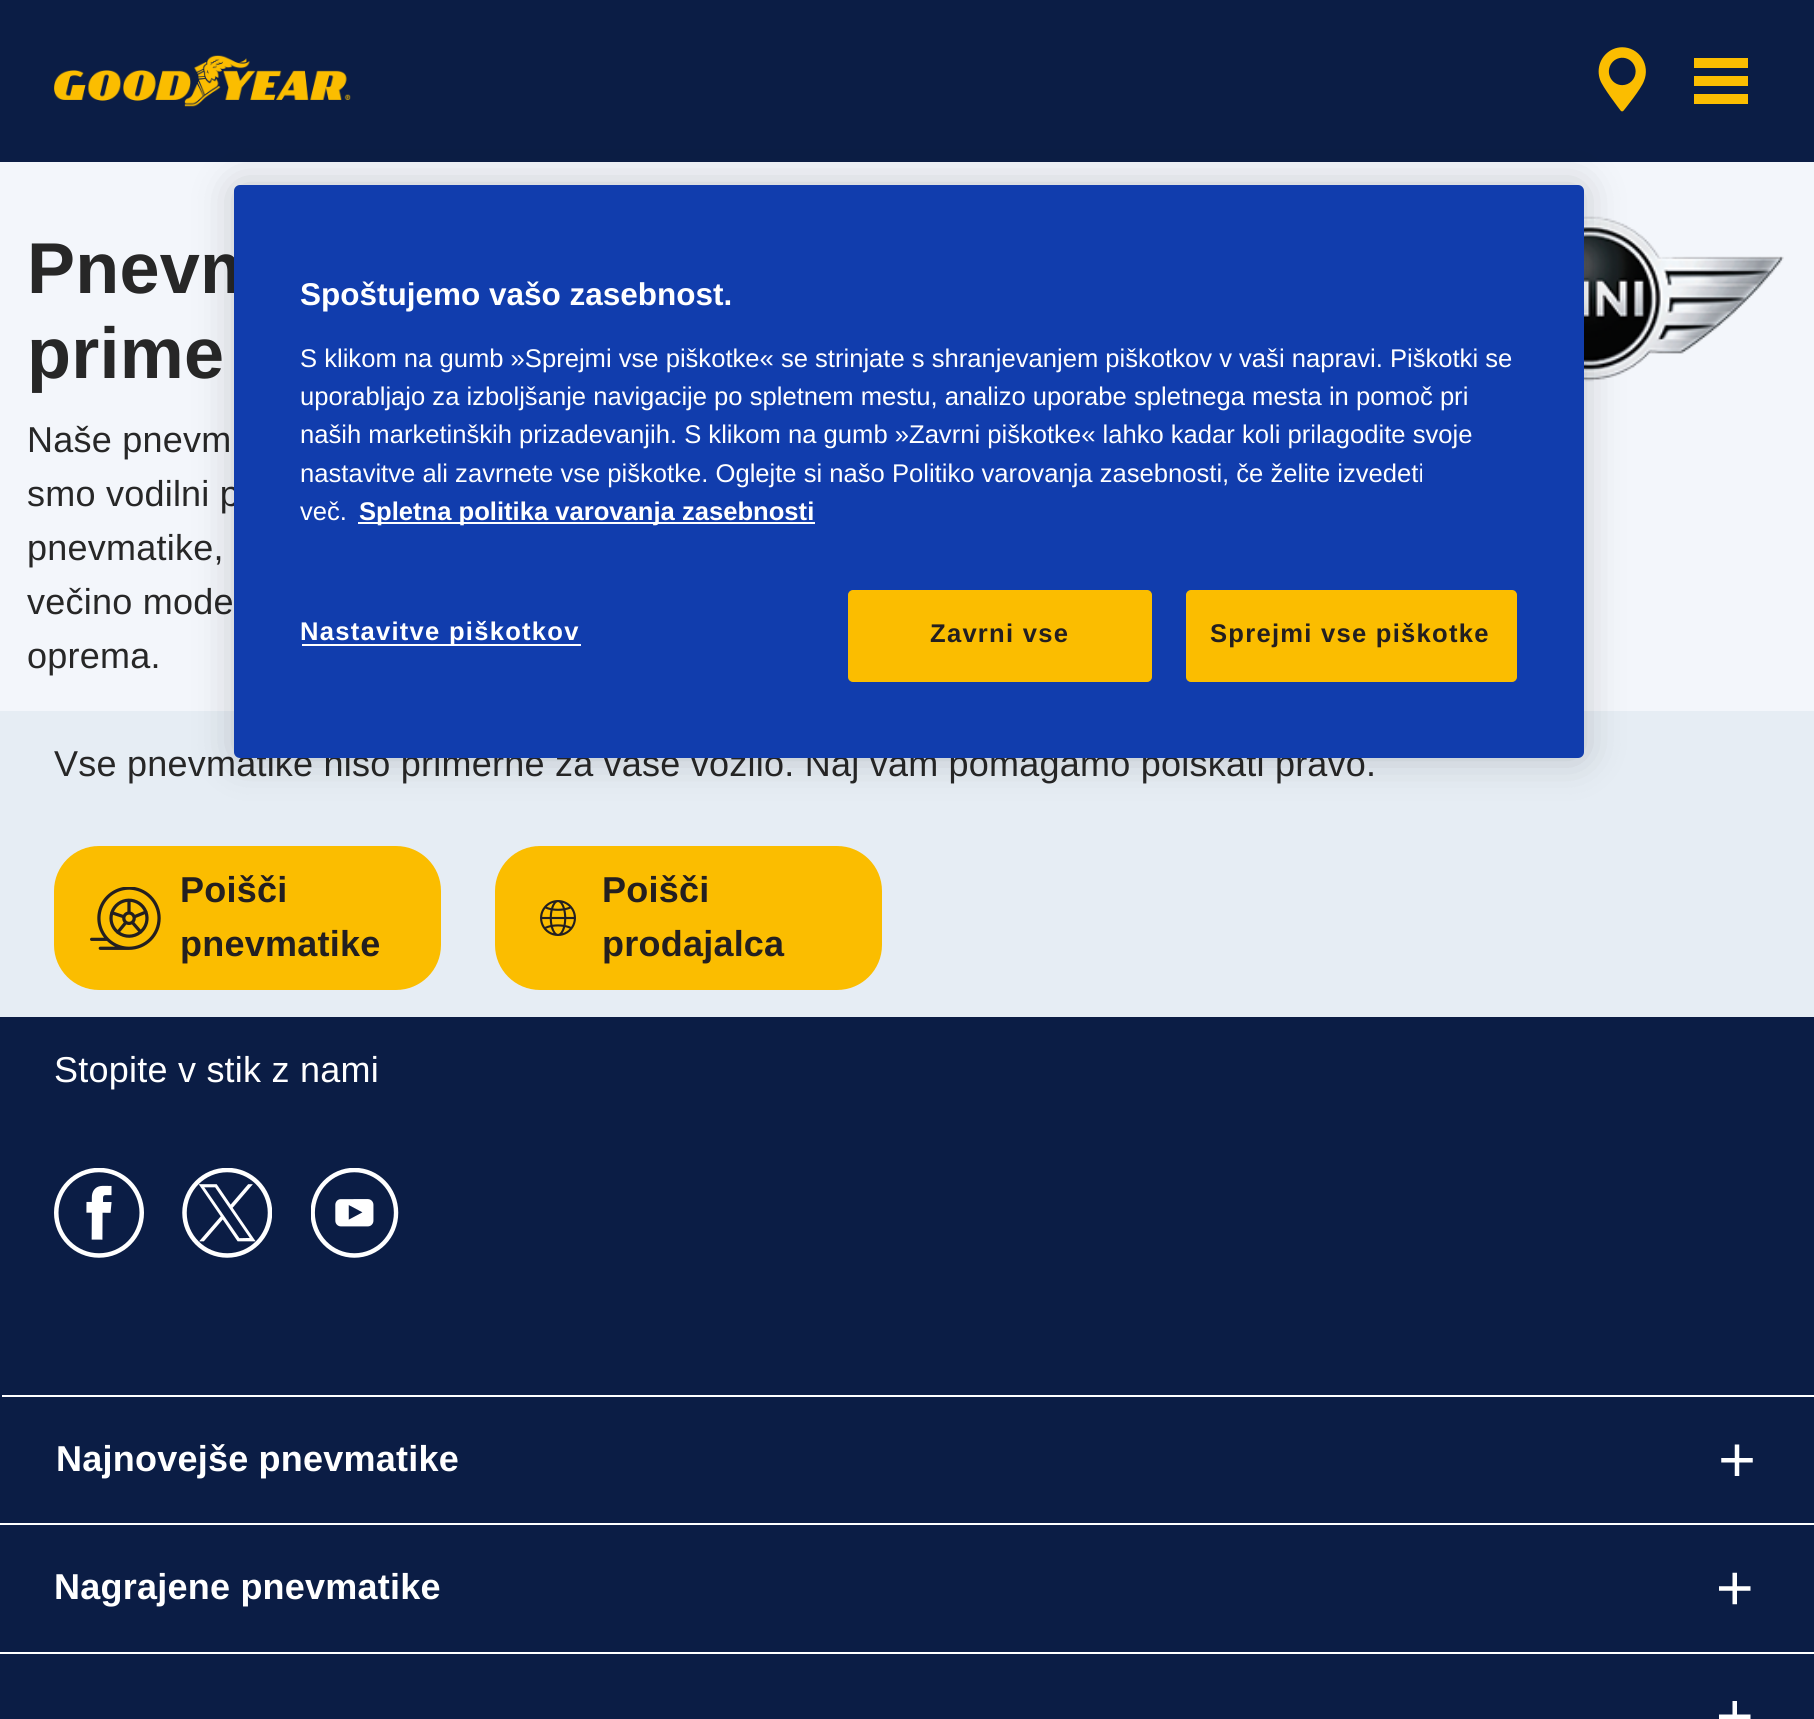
import math
import cairo

surface = cairo.ImageSurface(cairo.FORMAT_RGB24, 1814, 1719)
ctx = cairo.Context(surface)
options = cairo.FontOptions()
options.set_hint_metrics(cairo.HINT_METRICS_OFF)
options.set_hint_style(cairo.HINT_STYLE_NONE)
ctx.set_font_options(options)
ctx.set_miter_limit(4)


def spaced_text(x, y, s, letter, word):
    ctx.move_to(x, y)
    for ch in s:
        ctx.show_text(ch)
        ctx.rel_move_to(letter + word * (ch == ' '), 0)


def round_rect(x, y, w, h, r):
    ctx.new_sub_path()
    for i, (u, v) in enumerate([(x + w - r, y + h - r), (x + r, y + h - r), (x + r, y + r), (x + w - r, y + r)]):
        ctx.arc(u, v, r, i * math.pi / 2, (i + 1) * math.pi / 2)
    ctx.close_path()


def shadow(x, y, w, h, r, blur, alpha):
    ctx.push_group_with_content(cairo.CONTENT_ALPHA)
    ctx.set_operator(cairo.OPERATOR_SOURCE)
    for i in range(15, -16, -2):
        e = blur * i / 6
        if min(w, h) + 2 * e > 0:
            ctx.set_source_rgba(0, 0, 0, alpha * math.erfc((i - 1) / 8.5) / 2)
            round_rect(x - e, y - e, w + 2 * e, h + 2 * e, max(0, min(r + e + blur * .6, min(w, h) / 2 + e)))
            ctx.fill()
    ctx.mask(ctx.pop_group())


def picture(path, x, y, w, h):
    ctx.save()
    ctx.set_source_surface(cairo.ImageSurface.create_from_png(path), x, y)
    ctx.rectangle(x, y, w, h)
    ctx.fill()
    ctx.restore()


ctx.set_source_rgb(0.043, 0.114, 0.271)
ctx.paint()
picture("img1.png", 54, 55, 297, 52)
picture("img2.png", 1598, 47, 48, 65)
ctx.set_source_rgb(0.984, 0.741, 0)
ctx.new_path()
ctx.move_to(1748, 68)
ctx.line_to(1694, 68)
ctx.line_to(1694, 58)
ctx.line_to(1748, 58)
ctx.close_path()
ctx.move_to(1748, 76)
ctx.line_to(1694, 76)
ctx.line_to(1694, 86)
ctx.line_to(1748, 86)
ctx.close_path()
ctx.move_to(1748, 94)
ctx.line_to(1694, 94)
ctx.line_to(1694, 104)
ctx.line_to(1748, 104)
ctx.close_path()
ctx.fill()
ctx.set_source_rgb(0.953, 0.961, 0.984)
ctx.rectangle(0, 162, 1814, 549)
ctx.fill()
ctx.select_font_face("Liberation Sans", cairo.FONT_SLANT_NORMAL, cairo.FONT_WEIGHT_BOLD)
ctx.set_font_size(72)
ctx.set_source_rgb(0.153, 0.153, 0.153)
spaced_text(27, 293, "Pnevm", 0.23, 0)
spaced_text(27, 378, "prime", 0.23, 0)
ctx.select_font_face("Liberation Sans")
ctx.set_font_size(36)
spaced_text(27, 452, "Naše pnevm", 0.23, 0)
spaced_text(27, 506, "smo vodilni p", 0.23, 0)
spaced_text(27, 560, "pnevmatike,", 0.23, 0)
spaced_text(27, 614, "večino mode", 0.23, 0)
spaced_text(27, 668, "oprema.", 0.23, 0)
picture("img3.png", 1584, 216, 200, 166)
ctx.set_source_rgb(0.902, 0.929, 0.957)
ctx.rectangle(0, 711, 1814, 306)
ctx.fill()
ctx.set_source_rgb(0.153, 0.153, 0.153)
spaced_text(54, 776, "Vse pnevmatike niso primerne za vaše vozilo. Naj vam pomagamo poiskati pravo.", 0.23, 0)
ctx.set_source_rgb(0.984, 0.741, 0)
round_rect(54, 846, 387, 144, 45)
ctx.fill()
picture("img4.png", 90, 887, 71, 63)
ctx.select_font_face("Liberation Sans", cairo.FONT_SLANT_NORMAL, cairo.FONT_WEIGHT_BOLD)
ctx.set_source_rgb(0.137, 0.122, 0.125)
spaced_text(180, 902, "Poišči", 0.23, 0)
spaced_text(180, 956, "pnevmatike", 0.23, 0)
ctx.set_source_rgb(0.984, 0.741, 0)
round_rect(495, 846, 387, 144, 45)
ctx.fill()
picture("img5.png", 540, 900, 36, 36)
ctx.set_source_rgb(0.137, 0.122, 0.125)
spaced_text(602, 902, "Poišči", 0.23, 0)
spaced_text(602, 956, "prodajalca", 0.23, 0)
ctx.set_source_rgb(0, 0, 0)
shadow(234, 185, 1350, 573, 6, 20, 0.2)
ctx.set_source_rgb(0.067, 0.239, 0.678)
round_rect(234, 185, 1350, 573, 6)
ctx.fill()
ctx.set_font_size(31.5)
ctx.set_source_rgb(1, 1, 1)
ctx.move_to(300, 305)
ctx.show_text("Spoštujemo vašo zasebnost.")
ctx.select_font_face("Liberation Sans")
ctx.set_font_size(25.6)
ctx.move_to(300, 367)
ctx.show_text("S klikom na gumb »Sprejmi vse piškotke« se strinjate s shranjevanjem piškotkov v vaši napravi. Piškotki se")
ctx.move_to(300, 405)
ctx.show_text("uporabljajo za izboljšanje navigacije po spletnem mestu, analizo uporabe spletnega mesta in pomoč pri")
ctx.move_to(300, 443)
ctx.show_text("naših marketinških prizadevanjih. S klikom na gumb »Zavrni piškotke« lahko kadar koli prilagodite svoje")
ctx.move_to(300, 482)
ctx.show_text("nastavitve ali zavrnete vse piškotke. Oglejte si našo Politiko varovanja zasebnosti, če želite izvedeti")
ctx.move_to(300, 520)
ctx.show_text("več.")
ctx.rectangle(358, 522, 457, 2)
ctx.fill()
ctx.select_font_face("Liberation Sans", cairo.FONT_SLANT_NORMAL, cairo.FONT_WEIGHT_BOLD)
ctx.move_to(359, 520)
ctx.show_text("Spletna politika varovanja zasebnosti")
ctx.rectangle(302, 644, 279, 2)
ctx.fill()
spaced_text(300, 640, "Nastavitve piškotkov", 1.25, 0)
ctx.set_source_rgb(0.984, 0.741, 0)
round_rect(849, 591, 302, 90, 4)
ctx.fill_preserve()
ctx.stroke()
ctx.set_source_rgb(0.137, 0.122, 0.125)
spaced_text(930, 642, "Zavrni vse", 1.25, 0)
ctx.set_source_rgb(0.984, 0.741, 0)
round_rect(1187, 591, 329, 90, 4)
ctx.fill_preserve()
ctx.stroke()
ctx.set_source_rgb(0.137, 0.122, 0.125)
spaced_text(1210, 642, "Sprejmi vse piškotke", 1.25, 0)
ctx.select_font_face("Liberation Sans")
ctx.set_font_size(36)
ctx.set_source_rgb(1, 1, 1)
spaced_text(54, 1082, "Stopite v stik z nami", 0.23, 0)
picture("img6.png", 54, 1168, 90, 90)
picture("img7.png", 182, 1168, 90, 90)
picture("img8.png", 311, 1168, 88, 90)
ctx.rectangle(2, 1395, 1812, 2)
ctx.fill()
ctx.select_font_face("Liberation Sans", cairo.FONT_SLANT_NORMAL, cairo.FONT_WEIGHT_BOLD)
spaced_text(56, 1471, "Najnovejše pnevmatike", 0.23, 0)
picture("img9.png", 1721, 1444, 32, 32)
ctx.rectangle(0, 1523, 1814, 2)
ctx.fill()
spaced_text(54, 1599, "Nagrajene pnevmatike", 0.23, 0)
picture("img10.png", 1719, 1572, 32, 33)
ctx.rectangle(0, 1652, 1814, 2)
ctx.fill()
picture("img11.png", 1719, 1701, 32, 18)
surface.write_to_png("page.png")
